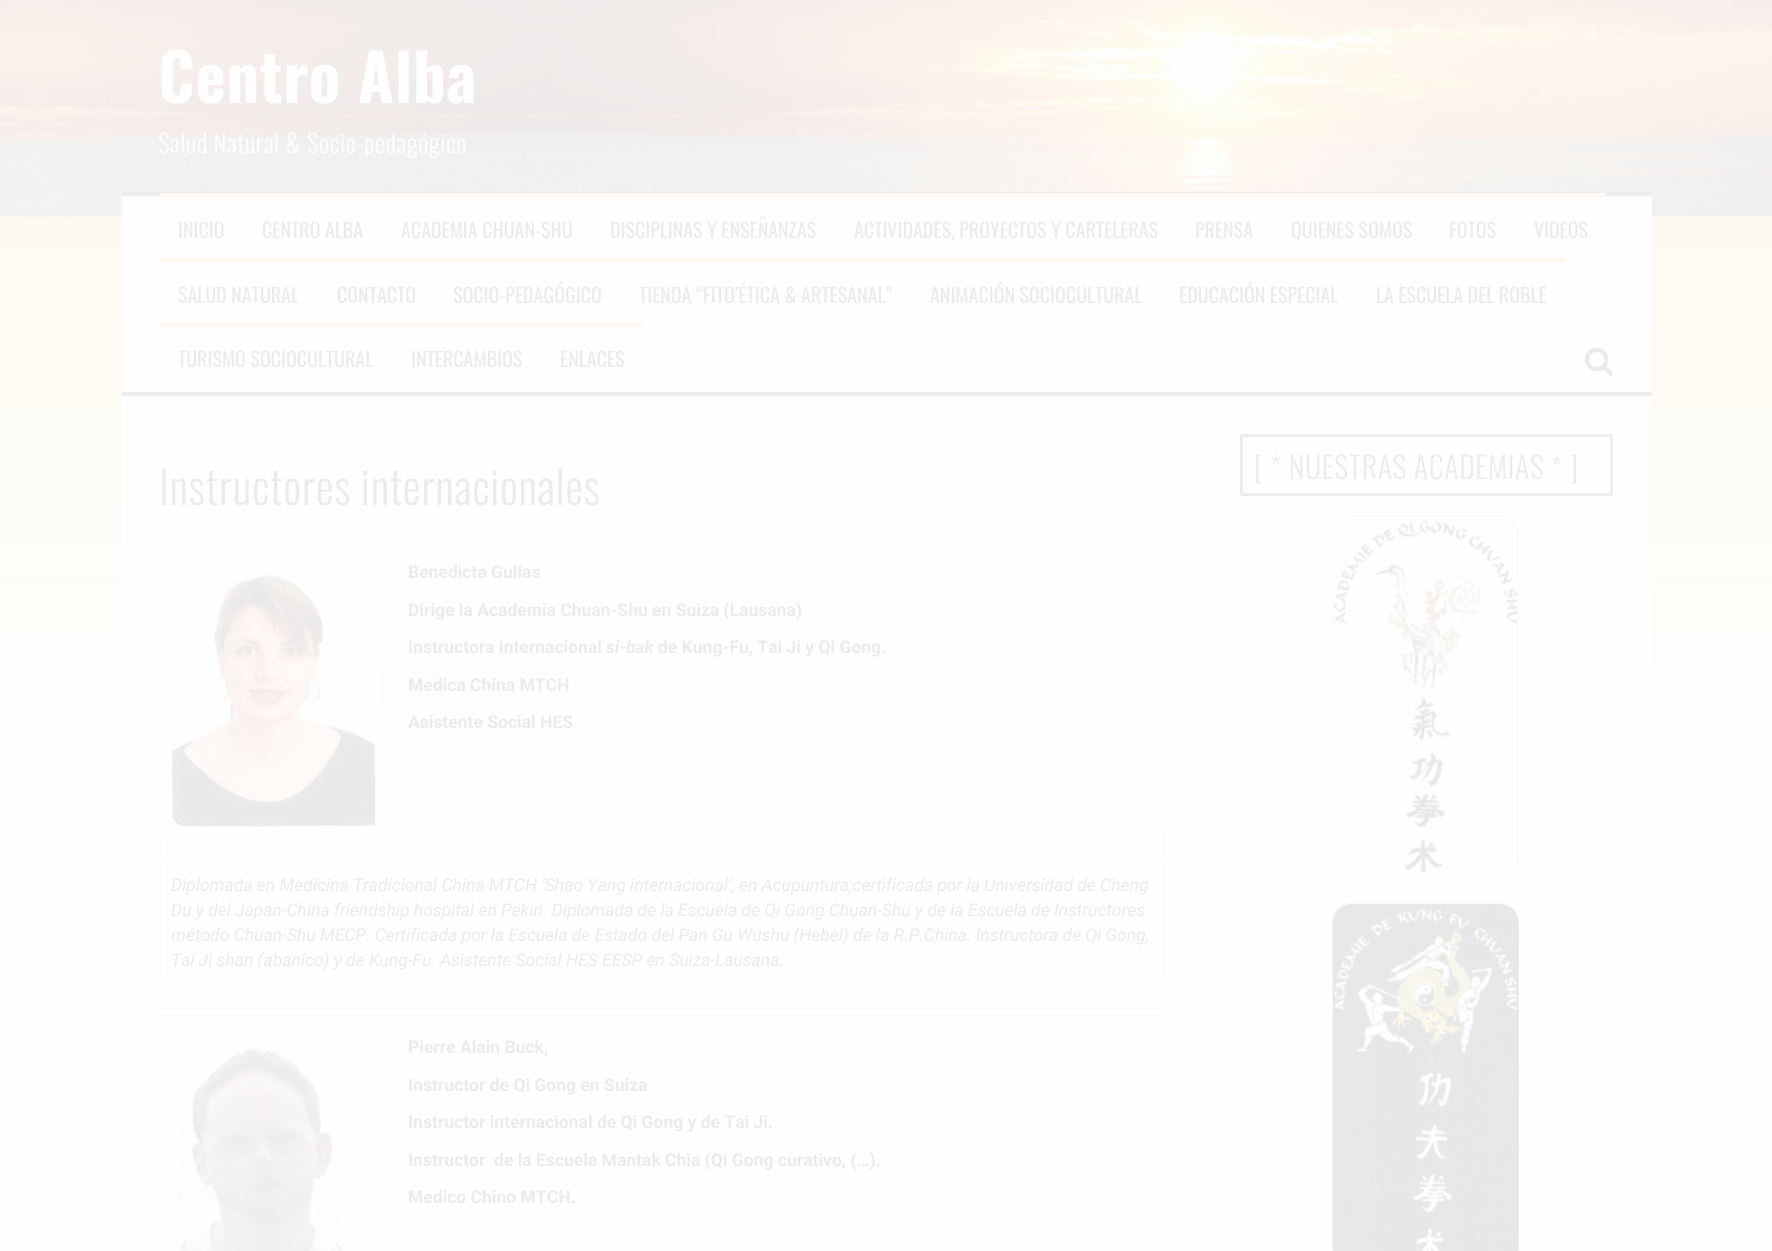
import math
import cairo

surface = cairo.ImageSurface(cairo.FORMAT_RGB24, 1772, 1251)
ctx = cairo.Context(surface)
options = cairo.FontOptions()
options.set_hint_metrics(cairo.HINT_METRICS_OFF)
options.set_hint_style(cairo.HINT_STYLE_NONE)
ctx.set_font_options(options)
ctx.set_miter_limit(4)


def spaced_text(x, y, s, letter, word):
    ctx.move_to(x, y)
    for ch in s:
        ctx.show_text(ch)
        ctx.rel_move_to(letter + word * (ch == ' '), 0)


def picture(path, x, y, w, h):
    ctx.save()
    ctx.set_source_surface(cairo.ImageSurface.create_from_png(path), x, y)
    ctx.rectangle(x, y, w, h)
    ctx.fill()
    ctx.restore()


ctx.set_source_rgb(0.996, 0.996, 0.992)
ctx.paint()
picture("img1.png", 0, 0, 1772, 741)
ctx.select_font_face("Oswald", cairo.FONT_SLANT_NORMAL, cairo.FONT_WEIGHT_BOLD)
ctx.set_font_size(65)
ctx.set_source_rgb(0.996, 0.996, 0.996)
spaced_text(158, 103, "Centro Alba", 0.6, 0)
ctx.select_font_face("Oswald Light")
ctx.set_font_size(25)
spaced_text(158, 153, "Salud Natural & Socio-pedagógico", 0.6, 0)
ctx.rectangle(123, 196, 1528, 196)
ctx.fill()
ctx.set_source_rgb(0.929, 0.929, 0.929)
ctx.new_path()
ctx.move_to(121, 192)
ctx.line_to(1652, 192)
ctx.line_to(1651, 196)
ctx.line_to(122, 196)
ctx.close_path()
ctx.fill()
ctx.set_source_rgb(0.988, 0.988, 0.988)
ctx.new_path()
ctx.move_to(1652, 192)
ctx.line_to(1652, 396)
ctx.line_to(1651, 392)
ctx.line_to(1651, 196)
ctx.close_path()
ctx.fill()
ctx.set_source_rgb(0.929, 0.929, 0.929)
ctx.new_path()
ctx.move_to(1652, 396)
ctx.line_to(121, 396)
ctx.line_to(122, 392)
ctx.line_to(1651, 392)
ctx.close_path()
ctx.fill()
ctx.set_source_rgb(0.988, 0.988, 0.988)
ctx.new_path()
ctx.move_to(121, 396)
ctx.line_to(121, 192)
ctx.line_to(122, 196)
ctx.line_to(122, 392)
ctx.close_path()
ctx.fill()
ctx.set_source_rgb(0.992, 0.976, 0.945)
ctx.rectangle(160, 193, 1446, 4)
ctx.fill()
ctx.select_font_face("Oswald")
ctx.set_font_size(20)
ctx.set_source_rgb(0.918, 0.918, 0.918)
ctx.move_to(178, 238)
ctx.show_text("INICIO")
ctx.move_to(262, 238)
ctx.show_text("CENTRO ALBA")
ctx.move_to(401, 238)
ctx.show_text("ACADEMIA CHUAN-SHU")
ctx.move_to(610, 238)
ctx.show_text("DISCIPLINAS Y ENSEÑANZAS")
ctx.move_to(854, 238)
ctx.show_text("ACTIVIDADES, PROYECTOS Y CARTELERAS")
ctx.move_to(1195, 238)
ctx.show_text("PRENSA")
ctx.move_to(1291, 238)
ctx.show_text("QUIENES SOMOS")
ctx.move_to(1449, 238)
ctx.show_text("FOTOS")
ctx.move_to(1534, 238)
ctx.show_text("VIDEOS")
ctx.set_source_rgb(0.992, 0.976, 0.945)
ctx.rectangle(160, 258, 1405, 4)
ctx.fill()
ctx.set_source_rgb(0.918, 0.918, 0.918)
ctx.move_to(178, 303)
ctx.show_text("SALUD NATURAL")
ctx.move_to(337, 303)
ctx.show_text("CONTACTO")
ctx.move_to(453, 303)
ctx.show_text("SOCIO-PEDAGÓGICO")
ctx.move_to(639, 303)
ctx.show_text("TIENDA “FITO’ÉTICA & ARTESANAL”")
ctx.move_to(930, 303)
ctx.show_text("ANIMACIÓN SOCIOCULTURAL")
ctx.move_to(1179, 303)
ctx.show_text("EDUCACIÓN ESPECIAL")
ctx.move_to(1376, 303)
ctx.show_text("LA ESCUELA DEL ROBLE")
ctx.set_source_rgb(0.992, 0.976, 0.945)
ctx.rectangle(160, 323, 483, 4)
ctx.fill()
ctx.set_source_rgb(0.918, 0.918, 0.918)
ctx.move_to(178, 367)
ctx.show_text("TURISMO SOCIOCULTURAL")
ctx.move_to(411, 367)
ctx.show_text("INTERCAMBIOS")
ctx.move_to(560, 367)
ctx.show_text("ENLACES")
picture("img2.png", 1585, 347, 28, 29)
ctx.set_source_rgb(0.996, 0.996, 0.996)
ctx.rectangle(122, 396, 1079, 274)
ctx.fill()
ctx.set_source_rgb(0.988, 0.988, 0.988)
ctx.rectangle(121, 396, 1, 194)
ctx.fill()
ctx.select_font_face("Oswald Light")
ctx.set_font_size(45)
ctx.set_source_rgb(0.918, 0.918, 0.918)
spaced_text(159, 505, "Instructores internacionales", 0.6, 0)
picture("img3.png", 170, 559, 210, 270)
ctx.select_font_face("Roboto", cairo.FONT_SLANT_NORMAL, cairo.FONT_WEIGHT_BOLD)
ctx.set_font_size(17.5)
ctx.move_to(408, 578)
ctx.show_text("Benedicta Gulias")
ctx.move_to(408, 616)
ctx.show_text("Dirige la Academia Chuan-Shu en Suiza (Lausana)")
ctx.move_to(408, 653)
ctx.show_text("Instructora internacional")
ctx.select_font_face("Roboto", cairo.FONT_SLANT_ITALIC, cairo.FONT_WEIGHT_BOLD)
ctx.move_to(606, 653)
ctx.show_text("si-bak")
ctx.select_font_face("Roboto", cairo.FONT_SLANT_NORMAL, cairo.FONT_WEIGHT_BOLD)
ctx.move_to(658, 653)
ctx.show_text("de Kung-Fu, Tai Ji y Qi Gong.")
ctx.move_to(408, 691)
ctx.show_text("Medica China MTCH")
ctx.move_to(408, 728)
ctx.show_text("Asistente Social HES")
ctx.set_source_rgb(0.984, 0.984, 0.984)
ctx.rectangle(160, 835, 1004, 1)
ctx.fill()
ctx.rectangle(1163, 835, 1, 148)
ctx.fill()
ctx.rectangle(160, 981, 1004, 1)
ctx.fill()
ctx.rectangle(160, 835, 1, 148)
ctx.fill()
ctx.rectangle(160, 860, 1004, 1)
ctx.fill()
ctx.select_font_face("Roboto", cairo.FONT_SLANT_ITALIC)
ctx.set_source_rgb(0.918, 0.918, 0.918)
ctx.move_to(171, 891)
ctx.show_text("Diplomada en Medicina Tradicional China MTCH ‘Shao Yang internacional’, en Acupuntura;certificada por la Universidad de Cheng")
ctx.move_to(171, 916)
ctx.show_text("Du y del Japan-China friendship hospital en Pekin. Diplomada de la Escuela de Qi Gong Chuan-Shu y de la Escuela de Instructores")
ctx.move_to(171, 941)
ctx.show_text("método Chuan-Shu MECP. Certificada por la Escuela de Estado del Pan Gu Wushu (Hebei) de la R.P.China. Instructora de Qi Gong,")
ctx.move_to(171, 966)
ctx.show_text("Tai Ji shan (abanico) y de Kung-Fu. Asistente Social HES EESP en Suiza-Lausana.")
ctx.set_source_rgb(0.973, 0.973, 0.973)
ctx.rectangle(160, 1008, 1004, 1)
ctx.fill()
picture("img4.png", 172, 1044, 187, 207)
ctx.select_font_face("Roboto", cairo.FONT_SLANT_NORMAL, cairo.FONT_WEIGHT_BOLD)
ctx.set_source_rgb(0.918, 0.918, 0.918)
ctx.move_to(408, 1053)
ctx.show_text("Pierre Alain Buck,")
ctx.move_to(408, 1091)
ctx.show_text("Instructor de Qi Gong en Suiza")
ctx.move_to(408, 1128)
ctx.show_text("Instructor internacional de Qi Gong y de Tai Ji.")
ctx.move_to(408, 1166)
ctx.show_text("Instructor  de la Escuela Mantak Chia (Qi Gong curativo, (…).")
ctx.move_to(408, 1203)
ctx.show_text("Medico Chino MTCH.")
ctx.set_source_rgb(0.996, 0.996, 0.996)
ctx.rectangle(1202, 396, 448, 274)
ctx.fill()
ctx.set_source_rgb(0.988, 0.988, 0.988)
ctx.rectangle(1650, 396, 1, 194)
ctx.fill()
ctx.rectangle(1201, 396, 1, 194)
ctx.fill()
ctx.rectangle(1241.5, 435.5, 370, 59)
ctx.set_source_rgb(0.929, 0.929, 0.929)
ctx.set_line_width(3)
ctx.stroke()
ctx.select_font_face("Oswald Light")
ctx.set_font_size(30)
ctx.set_source_rgb(0.918, 0.918, 0.918)
spaced_text(1254, 479, "[ * NUESTRAS ACADEMIAS * ]", 0.6, 0)
picture("img5.png", 1332, 515, 188, 364)
picture("img6.png", 1332, 903, 188, 348)
surface.write_to_png("page.png")
